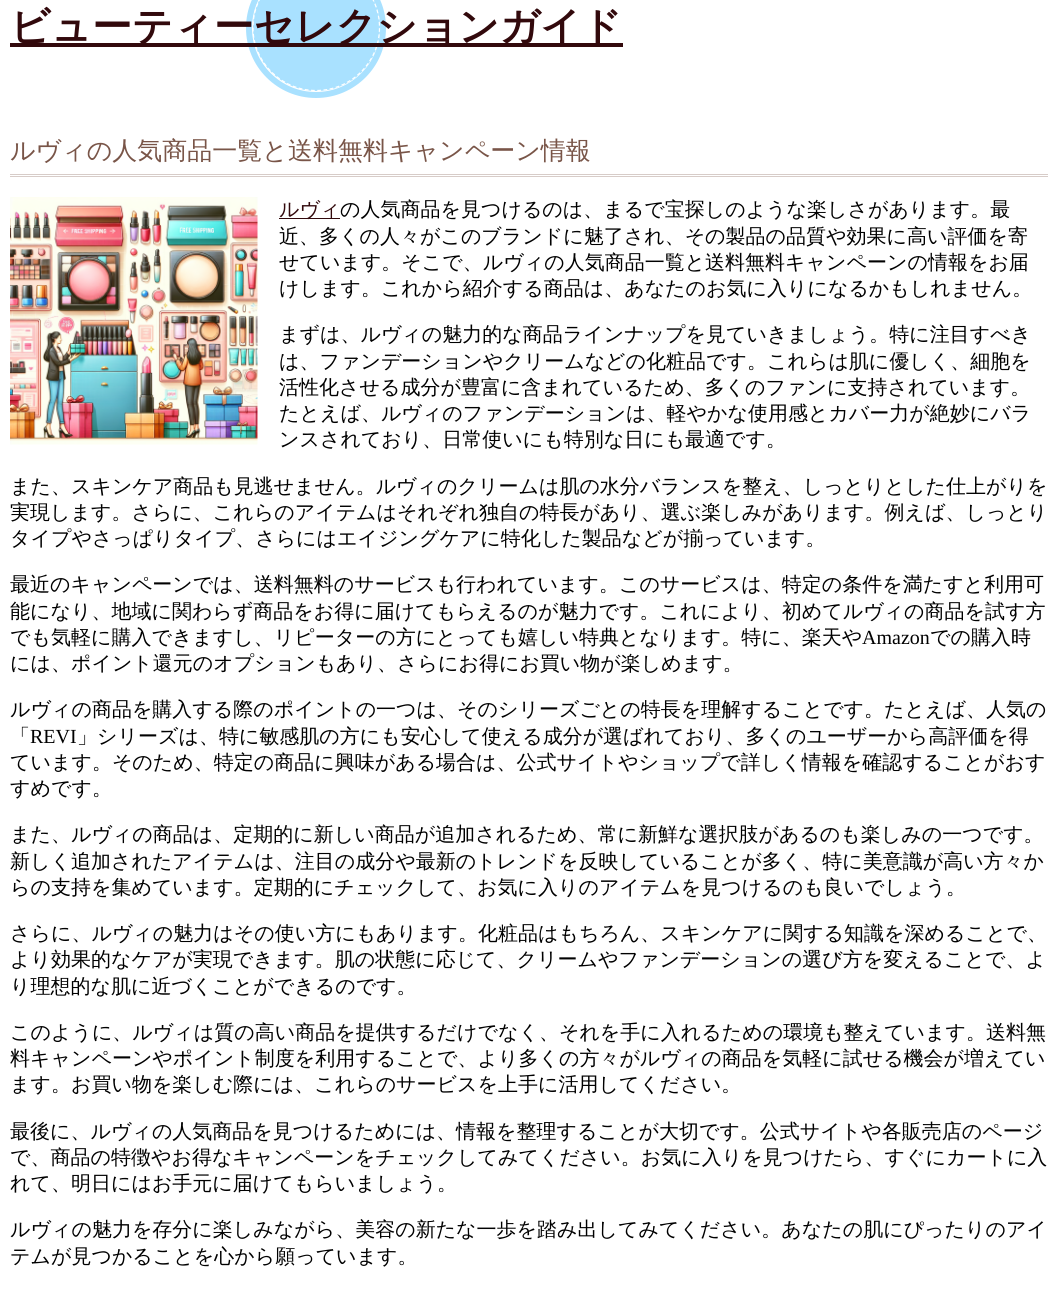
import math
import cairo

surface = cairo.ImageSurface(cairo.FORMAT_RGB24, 1057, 1290)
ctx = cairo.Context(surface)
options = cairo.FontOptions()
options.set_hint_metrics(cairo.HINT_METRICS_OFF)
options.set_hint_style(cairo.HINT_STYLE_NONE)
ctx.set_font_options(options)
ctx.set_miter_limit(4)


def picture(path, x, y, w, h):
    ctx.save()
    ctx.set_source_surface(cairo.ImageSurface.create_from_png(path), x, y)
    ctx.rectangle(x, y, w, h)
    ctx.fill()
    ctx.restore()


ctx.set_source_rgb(1, 1, 1)
ctx.paint()
ctx.arc(316, 28, 67, 0, 2 * math.pi)
ctx.set_source_rgb(0.663, 0.882, 1)
ctx.set_line_width(6)
ctx.stroke()
ctx.arc(316.5, 27.5, 63.5, 0, 2 * math.pi)
ctx.fill()
ctx.new_path()
ctx.move_to(316, -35.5)
ctx.curve_to(351, -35.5, 379.5, -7.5, 379.5, 27.5)
ctx.curve_to(379.5, 62.5, 351, 90.5, 316, 90.5)
ctx.curve_to(281.5, 90.5, 253, 62.5, 253, 27.5)
ctx.curve_to(253, -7.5, 281.5, -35.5, 316, -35.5)
ctx.close_path()
ctx.set_source_rgb(1, 1, 1)
ctx.set_line_width(1.2)
ctx.set_dash([3.75, 2.5])
ctx.stroke()
ctx.set_source_rgb(0.196, 0.039, 0.047)
ctx.rectangle(10, 43, 613, 4)
ctx.fill()
ctx.select_font_face("WenQuanYi Zen Hei", cairo.FONT_SLANT_NORMAL, cairo.FONT_WEIGHT_BOLD)
ctx.set_font_size(40)
ctx.move_to(10, 40)
ctx.show_text("ビューティーセレクションガイド")
ctx.set_source_rgb(0.843, 0.8, 0.784)
ctx.rectangle(10, 174, 1038, 1)
ctx.fill()
ctx.rectangle(10, 176, 1038, 1)
ctx.fill()
ctx.select_font_face("WenQuanYi Zen Hei Medium")
ctx.set_font_size(25)
ctx.set_source_rgb(0.475, 0.333, 0.282)
ctx.move_to(10, 159)
ctx.show_text("ルヴィの人気商品一覧と送料無料キャンペーン情報")
picture("img1.png", 10, 197, 248, 248)
ctx.set_source_rgb(0.196, 0.039, 0.047)
ctx.rectangle(279, 218, 61, 1)
ctx.fill()
ctx.set_font_size(20)
ctx.move_to(279, 216)
ctx.show_text("ルヴィ")
ctx.set_source_rgb(0, 0, 0)
ctx.move_to(340, 216)
ctx.show_text("の人気商品を見つけるのは、まるで宝探しのような楽しさがあります。最")
ctx.move_to(279, 243)
ctx.show_text("近、多くの人々がこのブランドに魅了され、その製品の品質や効果に高い評価を寄")
ctx.move_to(279, 269)
ctx.show_text("せています。そこで、ルヴィの人気商品一覧と送料無料キャンペーンの情報をお届")
ctx.move_to(279, 295)
ctx.show_text("けします。これから紹介する商品は、あなたのお気に入りになるかもしれません。")
ctx.move_to(279, 341)
ctx.show_text("まずは、ルヴィの魅力的な商品ラインナップを見ていきましょう。特に注目すべき")
ctx.move_to(279, 368)
ctx.show_text("は、ファンデーションやクリームなどの化粧品です。これらは肌に優しく、細胞を")
ctx.move_to(279, 394)
ctx.show_text("活性化させる成分が豊富に含まれているため、多くのファンに支持されています。")
ctx.move_to(279, 420)
ctx.show_text("たとえば、ルヴィのファンデーションは、軽やかな使用感とカバー力が絶妙にバラ")
ctx.move_to(279, 446)
ctx.show_text("ンスされており、日常使いにも特別な日にも最適です。")
ctx.move_to(10, 493)
ctx.show_text("また、スキンケア商品も見逃せません。ルヴィのクリームは肌の水分バランスを整え、しっとりとした仕上がりを")
ctx.move_to(10, 519)
ctx.show_text("実現します。さらに、これらのアイテムはそれぞれ独自の特長があり、選ぶ楽しみがあります。例えば、しっとり")
ctx.move_to(10, 545)
ctx.show_text("タイプやさっぱりタイプ、さらにはエイジングケアに特化した製品などが揃っています。")
ctx.move_to(10, 591)
ctx.show_text("最近のキャンペーンでは、送料無料のサービスも行われています。このサービスは、特定の条件を満たすと利用可")
ctx.move_to(10, 618)
ctx.show_text("能になり、地域に関わらず商品をお得に届けてもらえるのが魅力です。これにより、初めてルヴィの商品を試す方")
ctx.move_to(10, 644)
ctx.show_text("でも気軽に購入できますし、リピーターの方にとっても嬉しい特典となります。特に、楽天や")
ctx.select_font_face("Liberation Serif")
ctx.move_to(862, 644)
ctx.show_text("Amazon")
ctx.select_font_face("WenQuanYi Zen Hei Medium")
ctx.move_to(930, 644)
ctx.show_text("での購入時")
ctx.move_to(10, 670)
ctx.show_text("には、ポイント還元のオプションもあり、さらにお得にお買い物が楽しめます。")
ctx.move_to(10, 716)
ctx.show_text("ルヴィの商品を購入する際のポイントの一つは、そのシリーズごとの特長を理解することです。たとえば、人気の")
ctx.move_to(10, 743)
ctx.show_text("「")
ctx.select_font_face("Liberation Serif")
ctx.move_to(30, 743)
ctx.show_text("REVI")
ctx.select_font_face("WenQuanYi Zen Hei Medium")
ctx.move_to(77, 743)
ctx.show_text("」シリーズは、特に敏感肌の方にも安心して使える成分が選ばれており、多くのユーザーから高評価を得")
ctx.move_to(10, 769)
ctx.show_text("ています。そのため、特定の商品に興味がある場合は、公式サイトやショップで詳しく情報を確認することがおす")
ctx.move_to(10, 795)
ctx.show_text("すめです。")
ctx.move_to(10, 841)
ctx.show_text("また、ルヴィの商品は、定期的に新しい商品が追加されるため、常に新鮮な選択肢があるのも楽しみの一つです。")
ctx.move_to(10, 868)
ctx.show_text("新しく追加されたアイテムは、注目の成分や最新のトレンドを反映していることが多く、特に美意識が高い方々か")
ctx.move_to(10, 894)
ctx.show_text("らの支持を集めています。定期的にチェックして、お気に入りのアイテムを見つけるのも良いでしょう。")
ctx.move_to(10, 940)
ctx.show_text("さらに、ルヴィの魅力はその使い方にもあります。化粧品はもちろん、スキンケアに関する知識を深めることで、")
ctx.move_to(10, 966)
ctx.show_text("より効果的なケアが実現できます。肌の状態に応じて、クリームやファンデーションの選び方を変えることで、よ")
ctx.move_to(10, 993)
ctx.show_text("り理想的な肌に近づくことができるのです。")
ctx.move_to(10, 1039)
ctx.show_text("このように、ルヴィは質の高い商品を提供するだけでなく、それを手に入れるための環境も整えています。送料無")
ctx.move_to(10, 1065)
ctx.show_text("料キャンペーンやポイント制度を利用することで、より多くの方々がルヴィの商品を気軽に試せる機会が増えてい")
ctx.move_to(10, 1091)
ctx.show_text("ます。お買い物を楽しむ際には、これらのサービスを上手に活用してください。")
ctx.move_to(10, 1138)
ctx.show_text("最後に、ルヴィの人気商品を見つけるためには、情報を整理することが大切です。公式サイトや各販売店のページ")
ctx.move_to(10, 1164)
ctx.show_text("で、商品の特徴やお得なキャンペーンをチェックしてみてください。お気に入りを見つけたら、すぐにカートに入")
ctx.move_to(10, 1190)
ctx.show_text("れて、明日にはお手元に届けてもらいましょう。")
ctx.move_to(10, 1236)
ctx.show_text("ルヴィの魅力を存分に楽しみながら、美容の新たな一歩を踏み出してみてください。あなたの肌にぴったりのアイ")
ctx.move_to(10, 1263)
ctx.show_text("テムが見つかることを心から願っています。")
surface.write_to_png("page.png")
